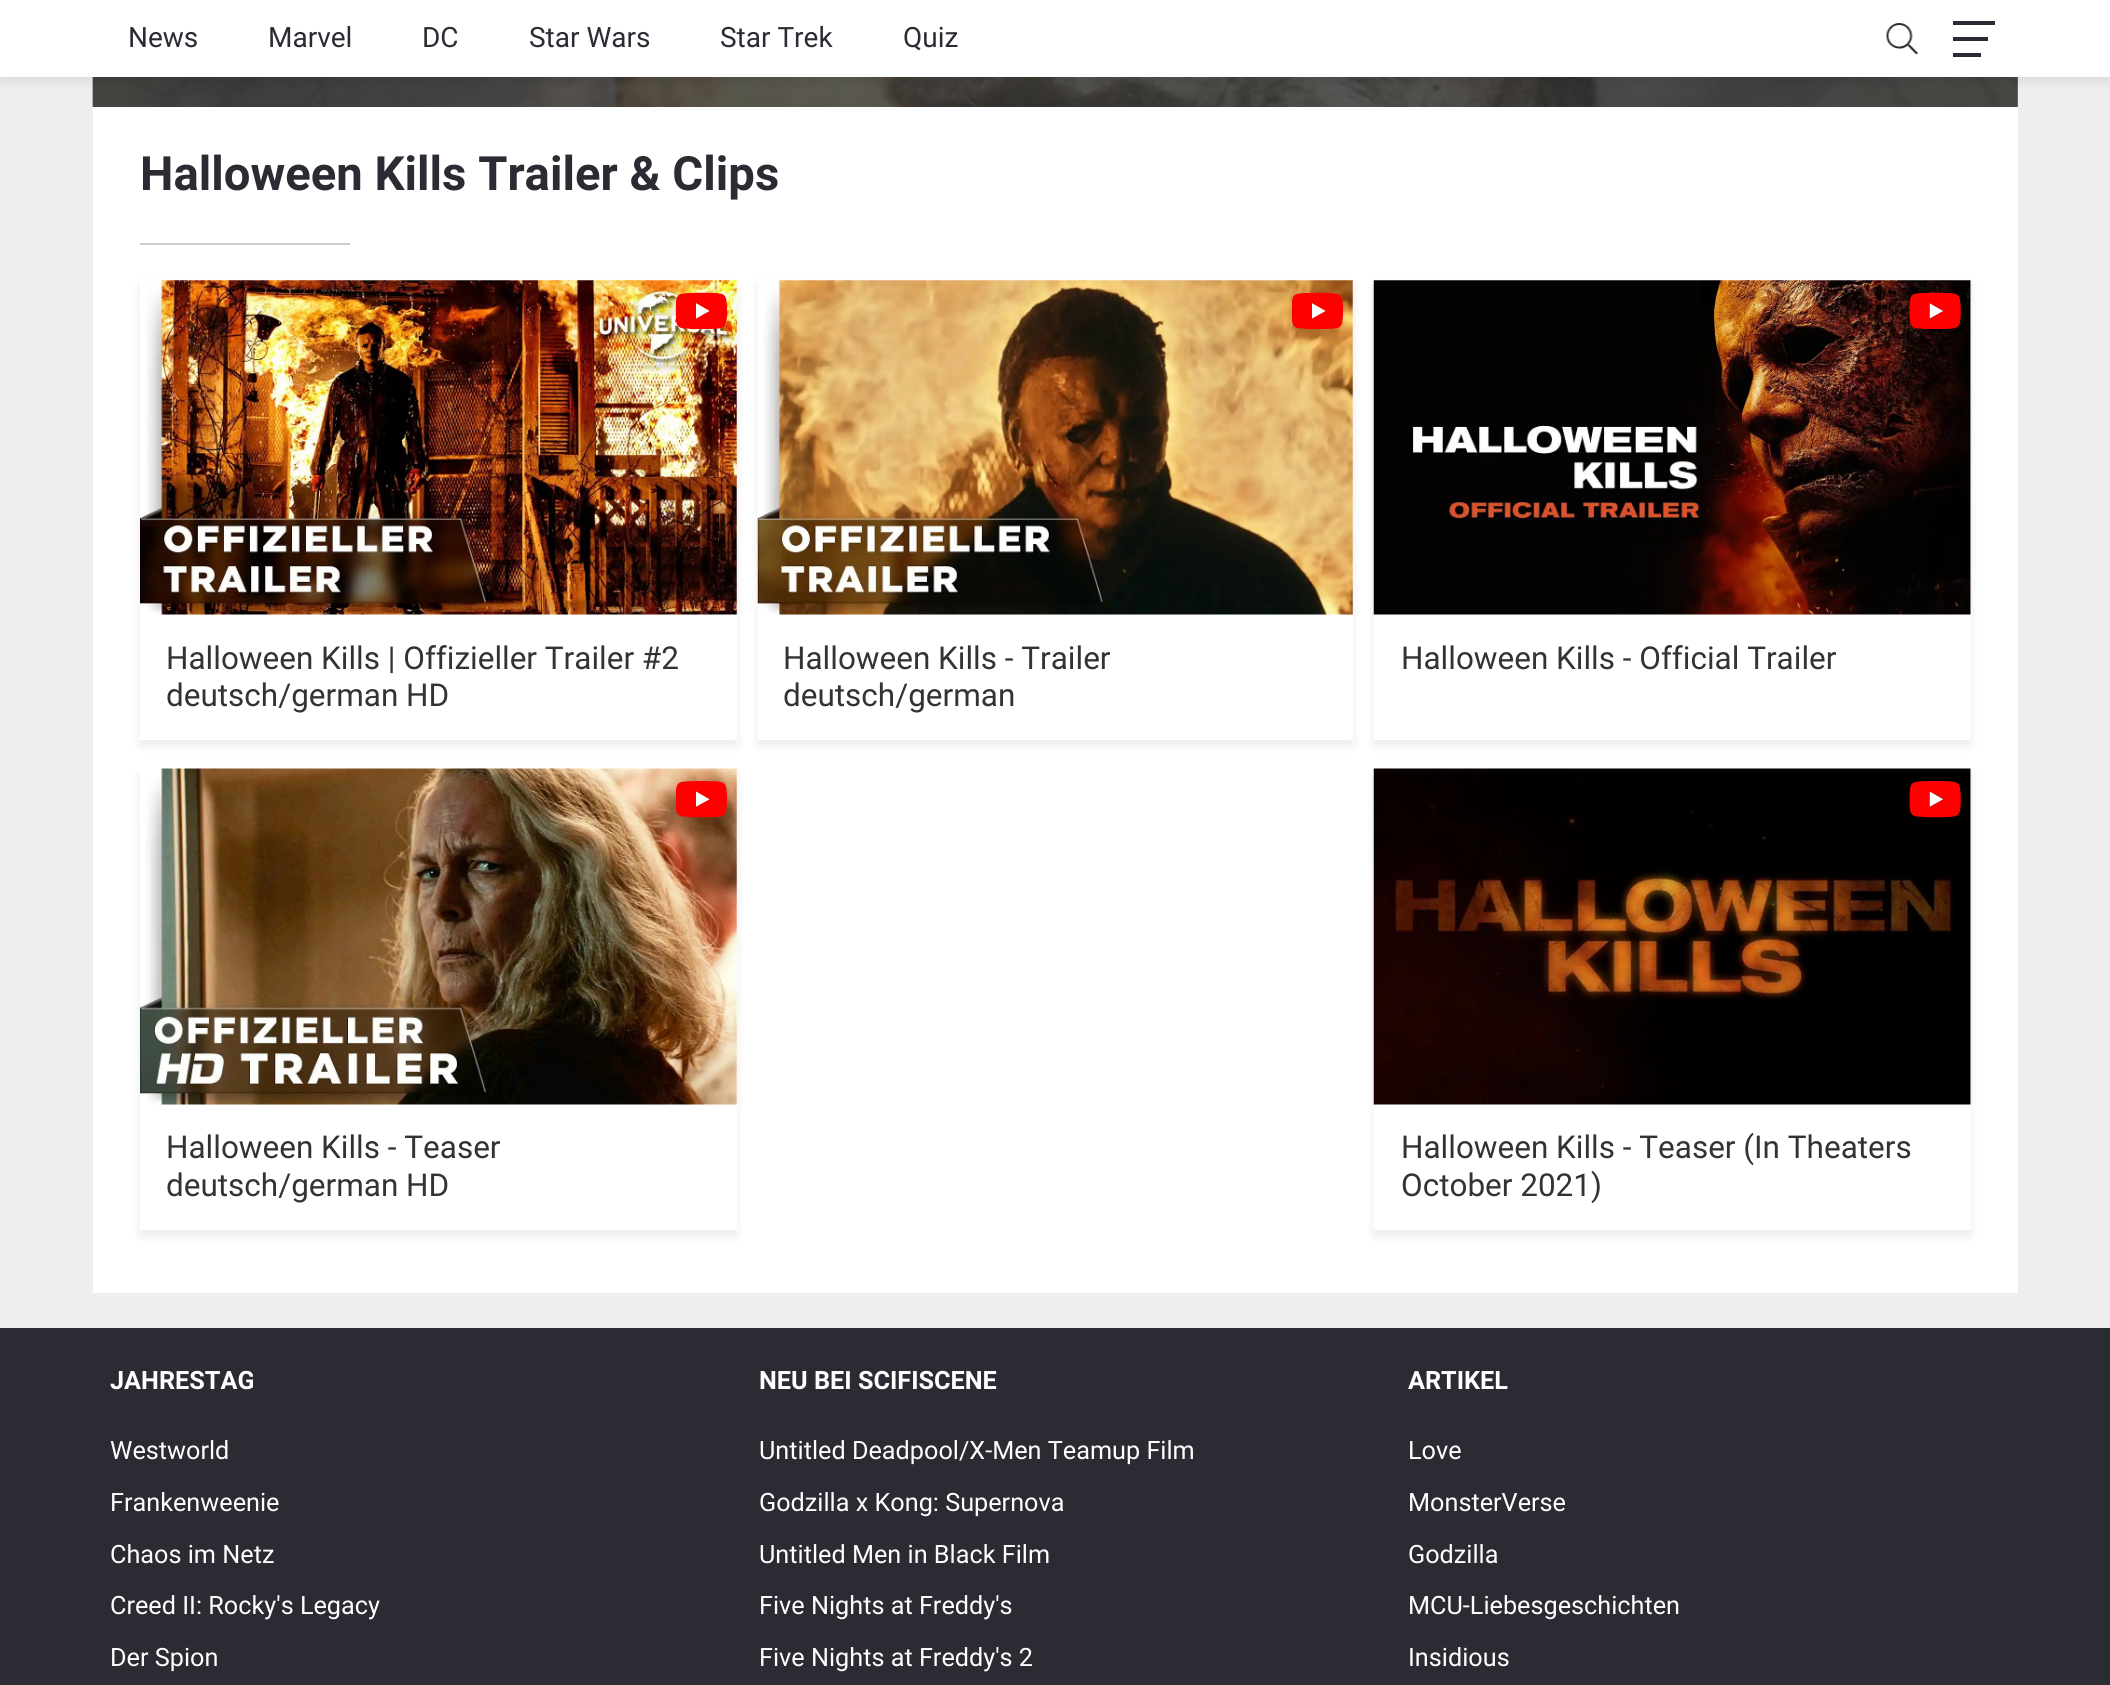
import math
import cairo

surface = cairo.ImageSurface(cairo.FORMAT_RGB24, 2110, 1685)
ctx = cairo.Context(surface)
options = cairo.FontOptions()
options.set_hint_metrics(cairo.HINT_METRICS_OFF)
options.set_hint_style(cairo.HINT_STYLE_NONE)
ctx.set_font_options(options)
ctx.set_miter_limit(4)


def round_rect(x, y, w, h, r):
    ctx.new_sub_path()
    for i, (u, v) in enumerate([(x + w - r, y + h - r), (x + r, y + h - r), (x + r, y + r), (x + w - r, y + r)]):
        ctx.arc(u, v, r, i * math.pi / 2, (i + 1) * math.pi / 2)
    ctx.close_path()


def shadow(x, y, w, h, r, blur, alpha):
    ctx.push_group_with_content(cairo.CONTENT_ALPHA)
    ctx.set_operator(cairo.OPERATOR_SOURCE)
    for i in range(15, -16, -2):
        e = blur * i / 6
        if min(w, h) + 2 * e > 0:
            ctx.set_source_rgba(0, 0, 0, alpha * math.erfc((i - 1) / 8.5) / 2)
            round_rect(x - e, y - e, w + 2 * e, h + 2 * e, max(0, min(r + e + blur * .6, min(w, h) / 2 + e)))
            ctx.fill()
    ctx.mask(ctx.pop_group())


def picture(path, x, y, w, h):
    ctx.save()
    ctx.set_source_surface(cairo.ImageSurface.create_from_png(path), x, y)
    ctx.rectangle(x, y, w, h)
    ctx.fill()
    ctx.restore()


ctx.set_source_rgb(0.933, 0.933, 0.933)
ctx.paint()
ctx.set_source_rgb(1, 1, 1)
ctx.rectangle(93, 77, 1925, 1216)
ctx.fill()
picture("img2.png", 92, 77, 1926, 30)
ctx.set_source_rgb(0, 0, 0)
shadow(0, -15, 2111, 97, 0, 5, 0.08)
ctx.set_source_rgb(1, 1, 1)
ctx.rectangle(0, 0, 2110, 77)
ctx.fill()
ctx.select_font_face("Roboto")
ctx.set_font_size(28)
ctx.set_source_rgb(0.169, 0.169, 0.204)
ctx.move_to(128, 47)
ctx.show_text("News")
ctx.move_to(268, 47)
ctx.show_text("Marvel")
ctx.move_to(422, 47)
ctx.show_text("DC")
ctx.move_to(529, 47)
ctx.show_text("Star Wars")
ctx.move_to(720, 47)
ctx.show_text("Star Trek")
ctx.move_to(903, 47)
ctx.show_text("Quiz")
picture("img1.png", 1886, 23, 33, 32)
ctx.rectangle(1953, 37, 35, 4)
ctx.fill()
ctx.rectangle(1953, 21, 42, 4)
ctx.fill()
ctx.rectangle(1953, 53, 28, 4)
ctx.fill()
ctx.select_font_face("Roboto", cairo.FONT_SLANT_NORMAL, cairo.FONT_WEIGHT_BOLD)
ctx.set_font_size(47.25)
ctx.move_to(140, 190)
ctx.show_text("Halloween Kills Trailer & Clips")
ctx.set_source_rgb(0.8, 0.8, 0.8)
ctx.rectangle(140, 243, 210, 2)
ctx.fill()
ctx.set_source_rgb(0, 0, 0)
shadow(140, 285, 597, 461, 0, 5, 0.08)
ctx.set_source_rgb(1, 1, 1)
ctx.rectangle(140, 280, 597, 460)
ctx.fill()
picture("img3.png", 140, 280, 597, 335)
picture("img4.png", 675, 292, 53, 37)
ctx.select_font_face("Roboto")
ctx.set_font_size(31.5)
ctx.set_source_rgb(0.2, 0.2, 0.2)
ctx.move_to(166, 669)
ctx.show_text("Halloween Kills | Offizieller Trailer #2")
ctx.move_to(166, 706)
ctx.show_text("deutsch/german HD")
ctx.set_source_rgb(0, 0, 0)
shadow(758, 285, 595, 461, 0, 5, 0.08)
ctx.set_source_rgb(1, 1, 1)
ctx.rectangle(758, 280, 595, 460)
ctx.fill()
picture("img5.png", 757, 280, 596, 335)
picture("img6.png", 1291, 292, 53, 37)
ctx.set_source_rgb(0.2, 0.2, 0.2)
ctx.move_to(783, 669)
ctx.show_text("Halloween Kills - Trailer")
ctx.move_to(783, 706)
ctx.show_text("deutsch/german")
ctx.set_source_rgb(0, 0, 0)
shadow(1374, 285, 597, 461, 0, 5, 0.08)
ctx.set_source_rgb(1, 1, 1)
ctx.rectangle(1374, 280, 597, 460)
ctx.fill()
picture("img7.png", 1373, 280, 598, 335)
picture("img8.png", 1909, 292, 52, 37)
ctx.set_source_rgb(0.2, 0.2, 0.2)
ctx.move_to(1401, 669)
ctx.show_text("Halloween Kills - Official Trailer")
ctx.set_source_rgb(0, 0, 0)
shadow(140, 774, 597, 462, 0, 5, 0.08)
ctx.set_source_rgb(1, 1, 1)
ctx.rectangle(140, 768, 597, 462)
ctx.fill()
picture("img9.png", 140, 768, 597, 337)
picture("img10.png", 675, 781, 53, 37)
ctx.set_source_rgb(0.2, 0.2, 0.2)
ctx.move_to(166, 1158)
ctx.show_text("Halloween Kills - Teaser")
ctx.move_to(166, 1196)
ctx.show_text("deutsch/german HD")
ctx.set_source_rgb(0, 0, 0)
shadow(1374, 774, 597, 462, 0, 5, 0.08)
ctx.set_source_rgb(1, 1, 1)
ctx.rectangle(1374, 768, 597, 462)
ctx.fill()
picture("img11.png", 1373, 768, 598, 337)
picture("img12.png", 1909, 781, 52, 37)
ctx.set_source_rgb(0.2, 0.2, 0.2)
ctx.move_to(1401, 1158)
ctx.show_text("Halloween Kills - Teaser (In Theaters")
ctx.move_to(1401, 1196)
ctx.show_text("October 2021)")
ctx.set_source_rgb(0.169, 0.169, 0.204)
ctx.rectangle(0, 1328, 2110, 357)
ctx.fill()
ctx.select_font_face("Roboto", cairo.FONT_SLANT_NORMAL, cairo.FONT_WEIGHT_BOLD)
ctx.set_font_size(25.25)
ctx.set_source_rgb(1, 1, 1)
ctx.move_to(110, 1389)
ctx.show_text("JAHRESTAG")
ctx.select_font_face("Roboto")
ctx.move_to(110, 1459)
ctx.show_text("Westworld")
ctx.move_to(110, 1511)
ctx.show_text("Frankenweenie")
ctx.move_to(110, 1563)
ctx.show_text("Chaos im Netz")
ctx.move_to(110, 1614)
ctx.show_text("Creed II: Rocky's Legacy")
ctx.move_to(110, 1666)
ctx.show_text("Der Spion")
ctx.select_font_face("Roboto", cairo.FONT_SLANT_NORMAL, cairo.FONT_WEIGHT_BOLD)
ctx.move_to(759, 1389)
ctx.show_text("NEU BEI SCIFISCENE")
ctx.select_font_face("Roboto")
ctx.move_to(759, 1459)
ctx.show_text("Untitled Deadpool/X-Men Teamup Film")
ctx.move_to(759, 1511)
ctx.show_text("Godzilla x Kong: Supernova")
ctx.move_to(759, 1563)
ctx.show_text("Untitled Men in Black Film")
ctx.move_to(759, 1614)
ctx.show_text("Five Nights at Freddy's")
ctx.move_to(759, 1666)
ctx.show_text("Five Nights at Freddy's 2")
ctx.select_font_face("Roboto", cairo.FONT_SLANT_NORMAL, cairo.FONT_WEIGHT_BOLD)
ctx.move_to(1408, 1389)
ctx.show_text("ARTIKEL")
ctx.select_font_face("Roboto")
ctx.move_to(1408, 1459)
ctx.show_text("Love")
ctx.move_to(1408, 1511)
ctx.show_text("MonsterVerse")
ctx.move_to(1408, 1563)
ctx.show_text("Godzilla")
ctx.move_to(1408, 1614)
ctx.show_text("MCU-Liebesgeschichten")
ctx.move_to(1408, 1666)
ctx.show_text("Insidious")
surface.write_to_png("page.png")
